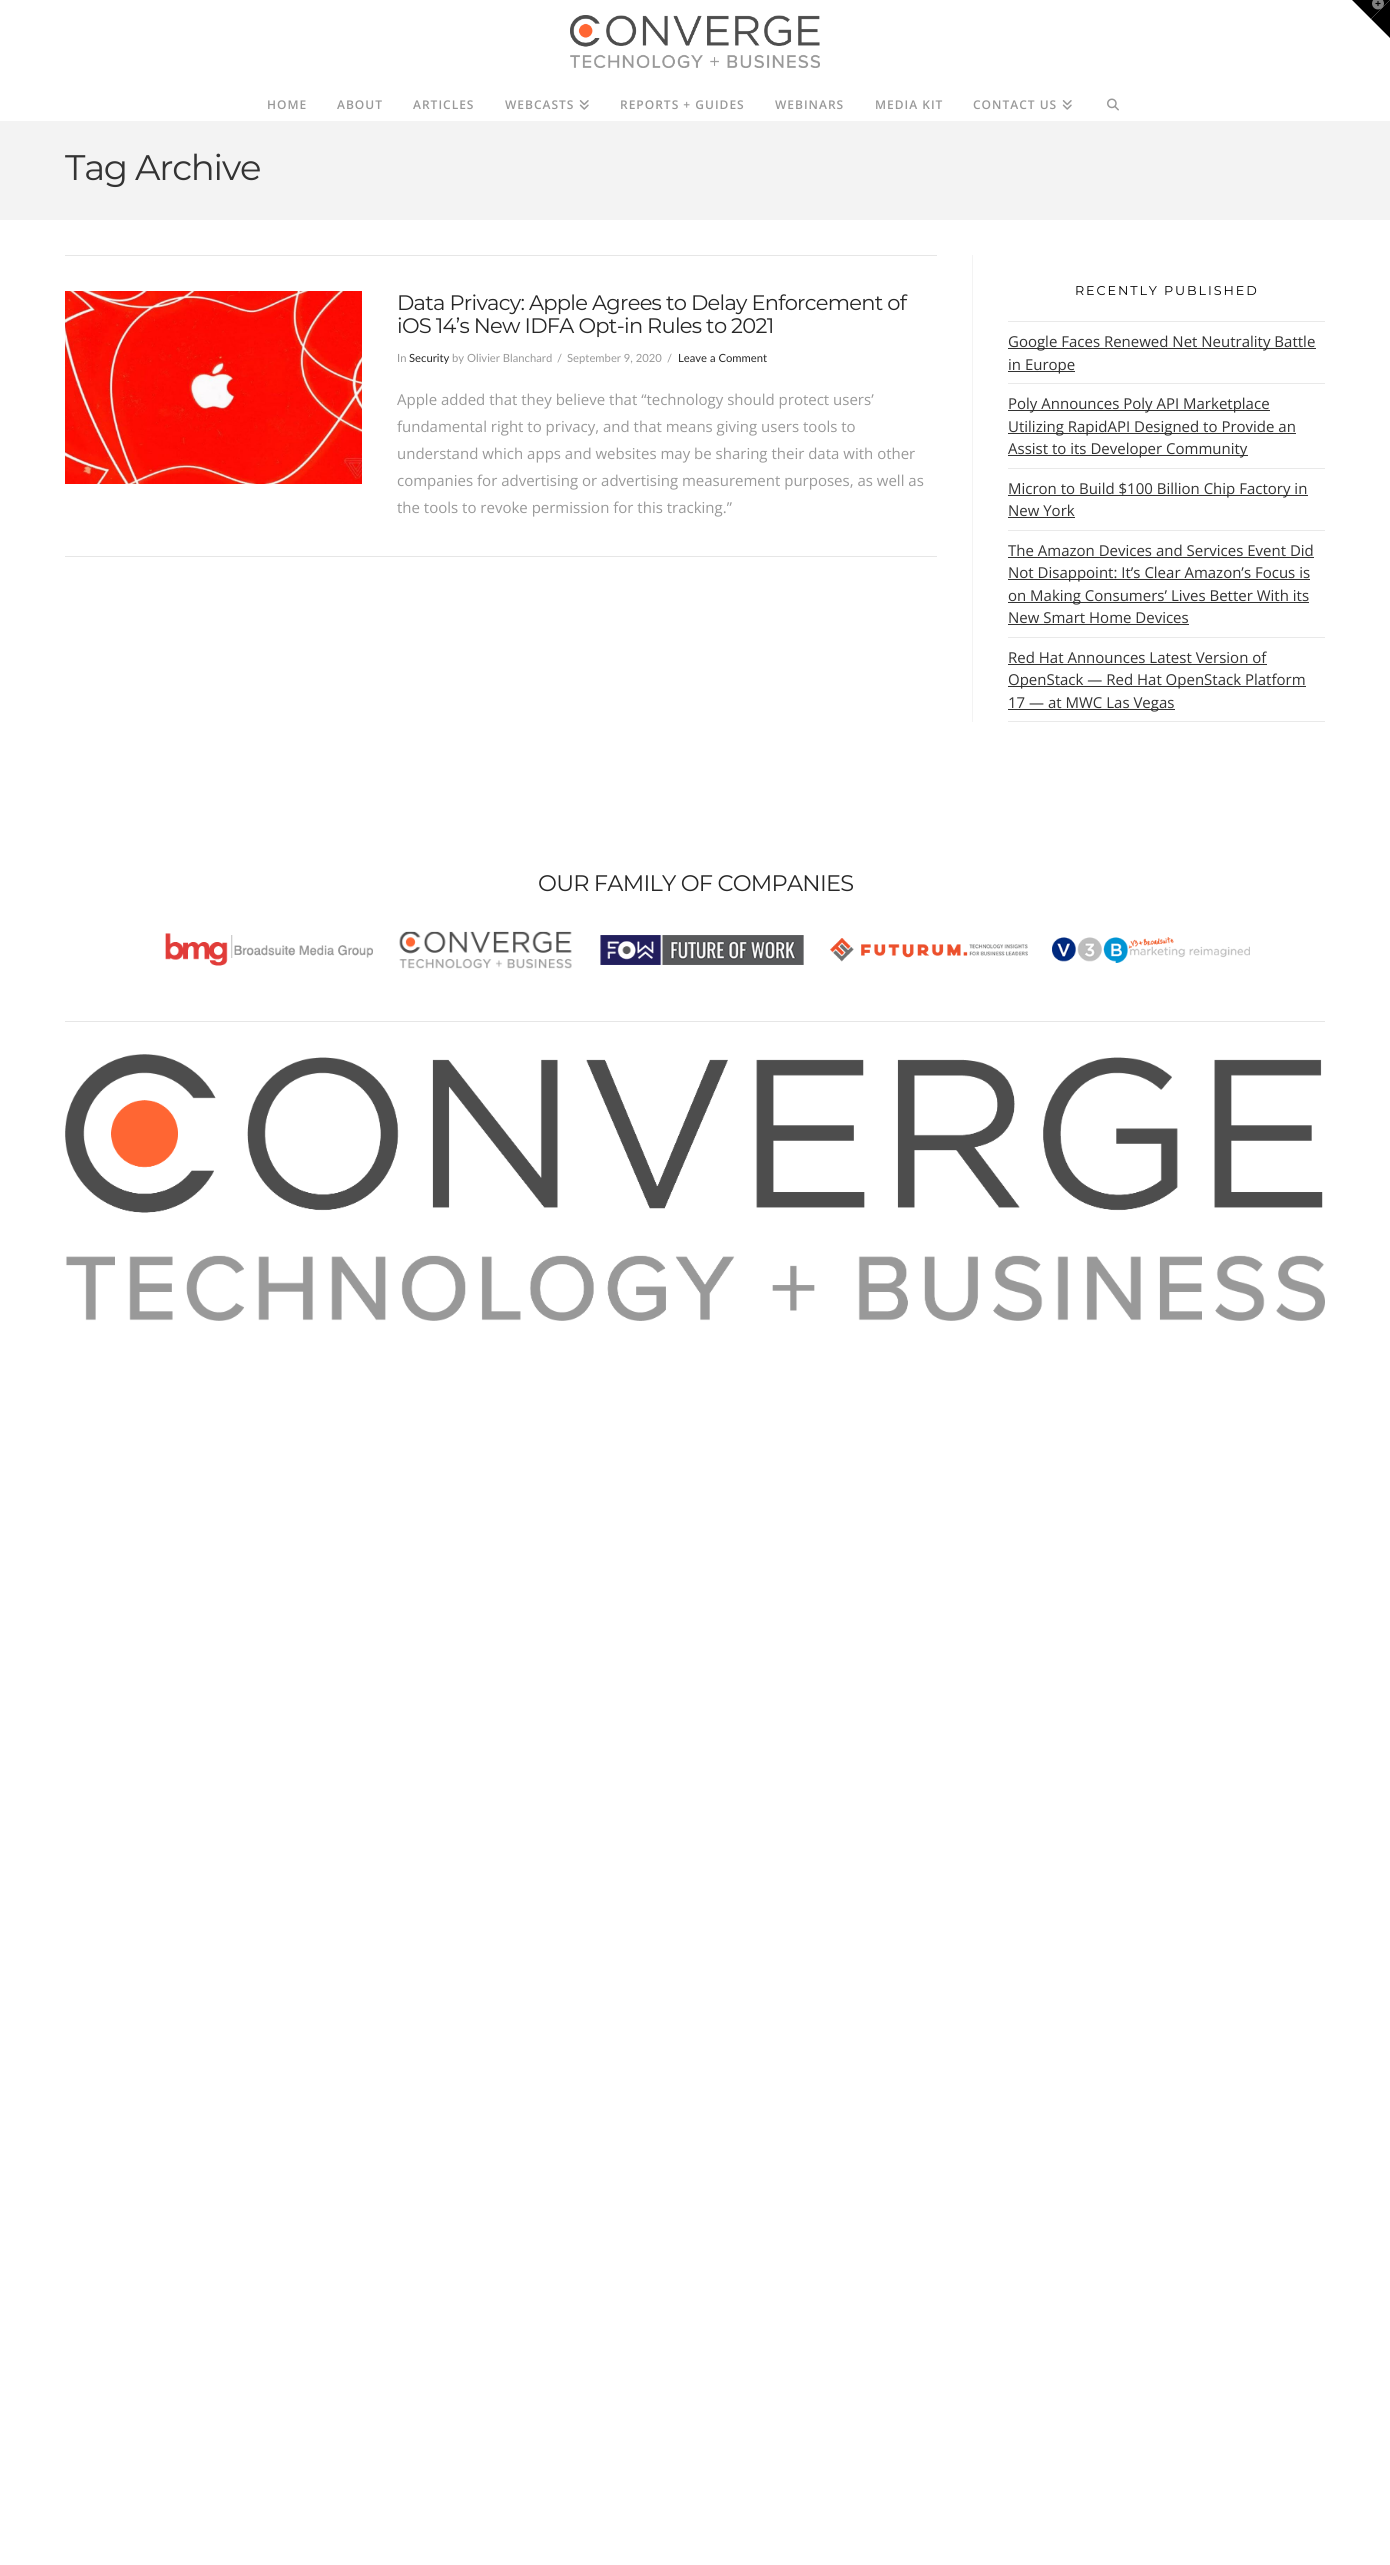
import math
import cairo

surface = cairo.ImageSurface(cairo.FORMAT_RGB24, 1390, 2565)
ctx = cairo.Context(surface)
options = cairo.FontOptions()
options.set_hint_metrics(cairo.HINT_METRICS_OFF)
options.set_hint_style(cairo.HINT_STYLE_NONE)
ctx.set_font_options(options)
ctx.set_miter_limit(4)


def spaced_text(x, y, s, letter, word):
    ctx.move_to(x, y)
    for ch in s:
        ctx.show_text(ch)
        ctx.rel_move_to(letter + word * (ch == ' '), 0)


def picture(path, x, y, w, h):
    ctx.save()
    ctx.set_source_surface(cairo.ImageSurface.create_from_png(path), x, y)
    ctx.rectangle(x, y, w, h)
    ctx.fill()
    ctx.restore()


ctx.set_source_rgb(1, 1, 1)
ctx.paint()
ctx.set_source_rgb(0, 0, 0)
ctx.new_path()
ctx.move_to(1352, 0)
ctx.line_to(1390, 0)
ctx.line_to(1371, 19)
ctx.close_path()
ctx.fill()
ctx.new_path()
ctx.move_to(1390, 0)
ctx.line_to(1390, 38)
ctx.line_to(1371, 19)
ctx.close_path()
ctx.fill()
picture("img1.png", 1372, 0, 12, 10)
picture("img2.png", 570, 15, 250, 53)
ctx.select_font_face("Open Sans SemiBold")
ctx.set_font_size(12)
ctx.set_source_rgb(0.6, 0.6, 0.6)
spaced_text(267, 109, "HOME", 1, 0)
spaced_text(337, 109, "ABOUT", 1, 0)
spaced_text(413, 109, "ARTICLES", 1, 0)
spaced_text(505, 109, "WEBCASTS", 1, 0)
picture("img3.png", 579, 100, 10, 10)
spaced_text(620, 109, "REPORTS + GUIDES", 1, 0)
spaced_text(775, 109, "WEBINARS", 1, 0)
spaced_text(875, 109, "MEDIA KIT", 1, 0)
spaced_text(973, 109, "CONTACT US", 1, 0)
picture("img3.png", 1062, 100, 10, 10)
picture("img4.png", 1107, 98, 12, 13)
ctx.set_source_rgb(0.953, 0.953, 0.953)
ctx.rectangle(0, 121, 1390, 99)
ctx.fill()
ctx.select_font_face("Montserrat Thin")
ctx.set_font_size(35.5)
ctx.set_source_rgb(0.2, 0.2, 0.2)
spaced_text(65, 180, "Tag Archive", -1.25, 0)
ctx.set_source_rgb(0.902, 0.902, 0.902)
ctx.rectangle(65, 255, 872, 1)
ctx.fill()
ctx.rectangle(65, 556, 872, 1)
ctx.fill()
picture("img5.png", 65, 291, 297, 193)
ctx.set_font_size(21)
ctx.set_source_rgb(0.153, 0.153, 0.153)
spaced_text(397, 310, "Data Privacy: Apple Agrees to Delay Enforcement of", -0.73, 0)
spaced_text(397, 333, "iOS 14’s New IDFA Opt-in Rules to 2021", -0.73, 0)
ctx.select_font_face("Lato")
ctx.set_font_size(11.25)
ctx.set_source_rgb(0.6, 0.6, 0.6)
ctx.move_to(397, 362)
ctx.show_text("In")
ctx.set_source_rgb(0.153, 0.153, 0.153)
ctx.move_to(409, 362)
ctx.show_text("Security")
ctx.set_source_rgb(0.6, 0.6, 0.6)
ctx.move_to(452, 362)
ctx.show_text("by Olivier Blanchard")
ctx.move_to(557, 362)
ctx.show_text("/")
ctx.move_to(567, 362)
ctx.show_text("September 9, 2020")
ctx.move_to(667, 362)
ctx.show_text("/")
ctx.set_source_rgb(0.153, 0.153, 0.153)
ctx.move_to(678, 362)
ctx.show_text("Leave a Comment")
ctx.select_font_face("Open Sans")
ctx.set_font_size(15)
ctx.set_source_rgb(0.6, 0.6, 0.6)
ctx.move_to(397, 405)
ctx.show_text("Apple added that they believe that “technology should protect users’")
ctx.move_to(397, 432)
ctx.show_text("fundamental right to privacy, and that means giving users tools to")
ctx.move_to(397, 459)
ctx.show_text("understand which apps and websites may be sharing their data with other")
ctx.move_to(397, 486)
ctx.show_text("companies for advertising or advertising measurement purposes, as well as")
ctx.move_to(397, 513)
ctx.show_text("the tools to revoke permission for this tracking.”")
ctx.set_source_rgb(0.953, 0.953, 0.953)
ctx.rectangle(972, 255, 1, 467)
ctx.fill()
ctx.select_font_face("Montserrat Thin")
ctx.set_font_size(12.75)
ctx.set_source_rgb(0, 0, 0)
spaced_text(1075, 295, "RECENTLY PUBLISHED", 1.9, 0)
ctx.set_source_rgb(0.914, 0.914, 0.914)
ctx.rectangle(1008, 321, 317, 1)
ctx.fill()
ctx.set_source_rgb(0.2, 0.2, 0.2)
ctx.rectangle(1008, 348, 308, 1)
ctx.fill()
ctx.select_font_face("Open Sans")
ctx.set_font_size(15)
ctx.move_to(1008, 347)
ctx.show_text("Google Faces Renewed Net Neutrality Battle")
ctx.rectangle(1008, 371, 67, 1)
ctx.fill()
ctx.move_to(1008, 370)
ctx.show_text("in Europe")
ctx.set_source_rgb(0.914, 0.914, 0.914)
ctx.rectangle(1008, 383, 317, 1)
ctx.fill()
ctx.set_source_rgb(0.2, 0.2, 0.2)
ctx.rectangle(1008, 410, 262, 1)
ctx.fill()
ctx.move_to(1008, 409)
ctx.show_text("Poly Announces Poly API Marketplace")
ctx.rectangle(1008, 433, 288, 1)
ctx.fill()
ctx.move_to(1008, 432)
ctx.show_text("Utilizing RapidAPI Designed to Provide an")
ctx.rectangle(1008, 455, 240, 1)
ctx.fill()
ctx.move_to(1008, 454)
ctx.show_text("Assist to its Developer Community")
ctx.set_source_rgb(0.914, 0.914, 0.914)
ctx.rectangle(1008, 468, 317, 1)
ctx.fill()
ctx.set_source_rgb(0.2, 0.2, 0.2)
ctx.rectangle(1008, 495, 300, 1)
ctx.fill()
ctx.move_to(1008, 494)
ctx.show_text("Micron to Build $100 Billion Chip Factory in")
ctx.move_to(1008, 516)
ctx.show_text("New York")
ctx.rectangle(1008, 517, 67, 1)
ctx.fill()
ctx.set_source_rgb(0.914, 0.914, 0.914)
ctx.rectangle(1008, 530, 317, 1)
ctx.fill()
ctx.set_source_rgb(0.2, 0.2, 0.2)
ctx.move_to(1008, 556)
ctx.show_text("The Amazon Devices and Services Event Did")
ctx.rectangle(1008, 557, 306, 1)
ctx.fill()
ctx.rectangle(1008, 579, 302, 1)
ctx.fill()
ctx.move_to(1008, 578)
ctx.show_text("Not Disappoint: It’s Clear Amazon’s Focus is")
ctx.rectangle(1008, 602, 301, 1)
ctx.fill()
ctx.move_to(1008, 601)
ctx.show_text("on Making Consumers’ Lives Better With its")
ctx.move_to(1008, 623)
ctx.show_text("New Smart Home Devices")
ctx.rectangle(1008, 624, 181, 1)
ctx.fill()
ctx.set_source_rgb(0.914, 0.914, 0.914)
ctx.rectangle(1008, 637, 317, 1)
ctx.fill()
ctx.rectangle(1008, 721, 317, 1)
ctx.fill()
ctx.set_source_rgb(0.2, 0.2, 0.2)
ctx.move_to(1008, 663)
ctx.show_text("Red Hat Announces Latest Version of")
ctx.rectangle(1008, 664, 259, 1)
ctx.fill()
ctx.rectangle(1008, 686, 298, 1)
ctx.fill()
ctx.move_to(1008, 685)
ctx.show_text("OpenStack — Red Hat OpenStack Platform")
ctx.rectangle(1008, 709, 167, 1)
ctx.fill()
ctx.move_to(1008, 708)
ctx.show_text("17 — at MWC Las Vegas")
ctx.select_font_face("Montserrat Thin")
ctx.set_font_size(22.5)
ctx.set_source_rgb(0.153, 0.153, 0.153)
spaced_text(538, 891, "OUR FAMILY OF COMPANIES", -0.75, 0)
picture("img6.png", 165, 933, 208, 33)
picture("img7.png", 399, 931, 173, 38)
picture("img8.png", 600, 935, 204, 30)
picture("img9.png", 830, 938, 198, 24)
picture("img10.png", 1052, 937, 198, 26)
ctx.set_source_rgb(0.902, 0.902, 0.902)
ctx.rectangle(65, 1021, 1260, 1)
ctx.fill()
picture("img11.png", 65, 1054, 1260, 267)
surface.write_to_png("page.png")
